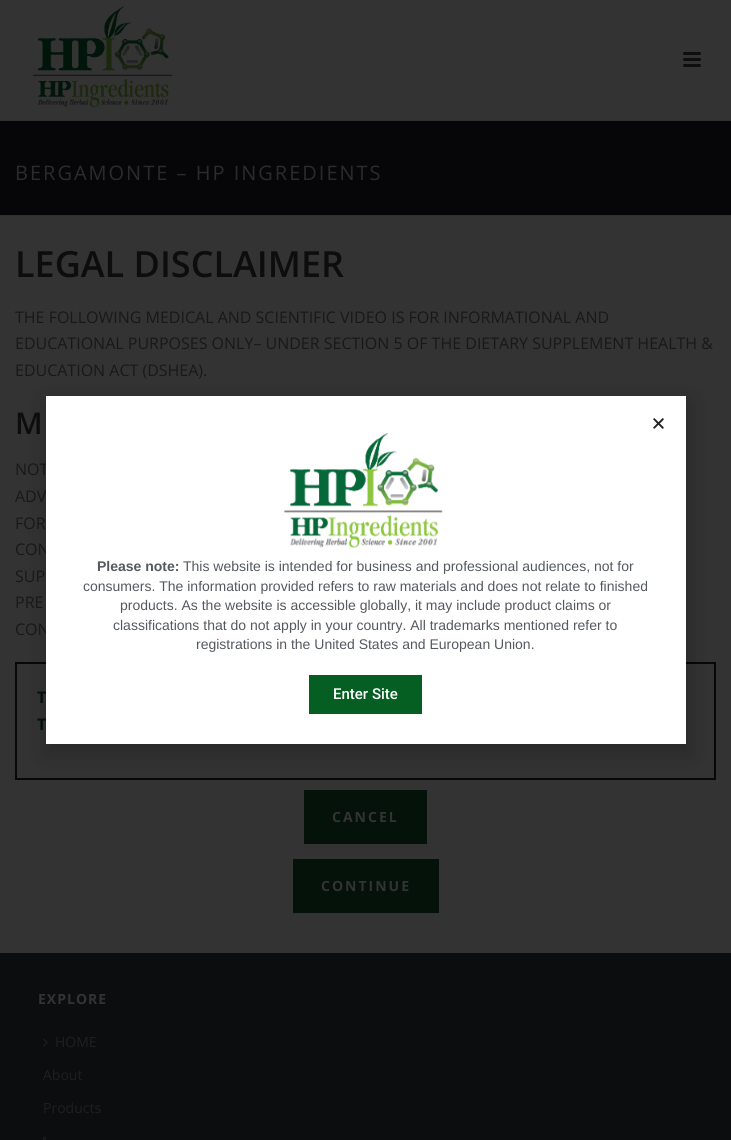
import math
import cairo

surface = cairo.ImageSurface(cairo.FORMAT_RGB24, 731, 1140)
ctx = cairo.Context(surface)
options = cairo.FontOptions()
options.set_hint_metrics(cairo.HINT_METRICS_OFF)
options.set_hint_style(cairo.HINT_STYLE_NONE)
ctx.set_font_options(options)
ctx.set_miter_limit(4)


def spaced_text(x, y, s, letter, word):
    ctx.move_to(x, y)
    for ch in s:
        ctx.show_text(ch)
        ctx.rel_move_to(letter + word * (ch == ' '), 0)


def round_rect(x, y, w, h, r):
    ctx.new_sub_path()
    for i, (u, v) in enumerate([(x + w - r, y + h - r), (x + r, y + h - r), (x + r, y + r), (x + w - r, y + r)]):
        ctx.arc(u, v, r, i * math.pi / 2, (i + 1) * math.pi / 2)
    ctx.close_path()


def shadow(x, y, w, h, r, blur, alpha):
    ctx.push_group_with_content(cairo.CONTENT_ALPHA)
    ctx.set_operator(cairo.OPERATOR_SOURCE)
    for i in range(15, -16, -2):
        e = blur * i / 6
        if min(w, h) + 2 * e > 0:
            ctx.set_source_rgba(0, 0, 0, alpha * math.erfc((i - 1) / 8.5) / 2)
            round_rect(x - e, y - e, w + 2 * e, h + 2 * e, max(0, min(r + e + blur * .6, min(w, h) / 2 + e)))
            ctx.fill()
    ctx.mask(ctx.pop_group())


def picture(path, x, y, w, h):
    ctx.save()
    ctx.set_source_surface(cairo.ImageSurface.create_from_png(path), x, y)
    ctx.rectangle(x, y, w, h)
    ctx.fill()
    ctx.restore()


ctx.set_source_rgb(0.2, 0.2, 0.2)
ctx.paint()
ctx.set_source_rgb(0.027, 0.027, 0.035)
ctx.rectangle(0, 121, 731, 94)
ctx.fill()
ctx.set_source_rgb(0.184, 0.184, 0.184)
ctx.rectangle(0, 215, 731, 1)
ctx.fill()
ctx.rectangle(0, 120, 731, 1)
ctx.fill()
picture("img1.png", 32, 6, 141, 102)
ctx.set_source_rgb(0.055, 0.055, 0.055)
round_rect(683, 52, 18, 3, 1.5)
ctx.fill()
round_rect(683, 58, 18, 3, 1.5)
ctx.fill()
round_rect(683, 64, 18, 3, 1.5)
ctx.fill()
ctx.select_font_face("Open Sans")
ctx.set_font_size(20)
ctx.set_source_rgb(0.169, 0.169, 0.169)
spaced_text(15, 180, "BERGAMONTE – HP INGREDIENTS", 2, 0)
ctx.select_font_face("Open Sans SemiBold")
ctx.set_font_size(36)
ctx.set_source_rgb(0.051, 0.051, 0.051)
ctx.move_to(15, 277)
ctx.show_text("LEGAL DISCLAIMER")
ctx.select_font_face("Open Sans")
ctx.set_font_size(16)
ctx.set_source_rgb(0.094, 0.094, 0.094)
ctx.move_to(15, 323)
ctx.show_text("THE FOLLOWING MEDICAL AND SCIENTIFIC VIDEO IS FOR INFORMATIONAL AND")
ctx.move_to(15, 349)
ctx.show_text("EDUCATIONAL PURPOSES ONLY– UNDER SECTION 5 OF THE DIETARY SUPPLEMENT HEALTH &")
ctx.move_to(15, 376)
ctx.show_text("EDUCATION ACT (DSHEA).")
ctx.select_font_face("Open Sans SemiBold")
ctx.set_font_size(30)
ctx.set_source_rgb(0.051, 0.051, 0.051)
ctx.move_to(15, 434)
ctx.show_text("M")
ctx.select_font_face("Open Sans")
ctx.set_font_size(16)
ctx.set_source_rgb(0.094, 0.094, 0.094)
ctx.move_to(15, 475)
ctx.show_text("NOT")
ctx.move_to(15, 502)
ctx.show_text("ADV")
ctx.move_to(15, 529)
ctx.show_text("FOR")
ctx.move_to(15, 555)
ctx.show_text("CON")
ctx.move_to(15, 582)
ctx.show_text("SUP")
ctx.move_to(15, 608)
ctx.show_text("PRE")
ctx.move_to(15, 635)
ctx.show_text("CON")
ctx.rectangle(16, 663, 699, 116)
ctx.set_source_rgb(0.031, 0.031, 0.031)
ctx.stroke()
ctx.select_font_face("Open Sans", cairo.FONT_SLANT_NORMAL, cairo.FONT_WEIGHT_BOLD)
ctx.set_source_rgb(0.016, 0.071, 0.039)
ctx.move_to(37, 703)
ctx.show_text("T")
ctx.move_to(37, 730)
ctx.show_text("T")
ctx.rectangle(304, 790, 123, 54)
ctx.fill()
ctx.set_font_size(14)
ctx.set_source_rgb(0.2, 0.2, 0.2)
spaced_text(332, 822, "CANCEL", 2, 0)
ctx.set_source_rgb(0.016, 0.071, 0.039)
ctx.rectangle(293, 859, 146, 54)
ctx.fill()
ctx.set_source_rgb(0.2, 0.2, 0.2)
spaced_text(321, 891, "CONTINUE", 2, 0)
ctx.set_source_rgb(0.047, 0.051, 0.055)
ctx.rectangle(0, 953, 731, 187)
ctx.fill()
ctx.set_source_rgb(0.2, 0.2, 0.2)
spaced_text(38, 1004, "EXPLORE", 1, 0)
picture("img2.png", 43, 1038, 5, 9)
ctx.select_font_face("Open Sans")
ctx.set_source_rgb(0.122, 0.122, 0.122)
ctx.move_to(55, 1047)
ctx.show_text("HOME")
ctx.move_to(43, 1080)
ctx.show_text("About")
ctx.move_to(43, 1113)
ctx.show_text("Products")
ctx.set_source_rgb(0.098, 0.102, 0.102)
ctx.rectangle(43, 1137, 3, 3)
ctx.fill()
ctx.set_source_rgb(0, 0, 0)
shadow(45, 401, 646, 354, 0, 11.5, 0.2)
ctx.set_source_rgb(1, 1, 1)
ctx.rectangle(46, 396, 640, 348)
ctx.fill()
picture("img3.png", 653, 418, 11, 11)
picture("img4.png", 284, 433, 159, 115)
ctx.select_font_face("Liberation Sans", cairo.FONT_SLANT_NORMAL, cairo.FONT_WEIGHT_BOLD)
ctx.set_source_rgb(0.329, 0.349, 0.373)
ctx.move_to(97, 571)
ctx.show_text("Please note:")
ctx.select_font_face("Liberation Sans")
ctx.move_to(183, 571)
ctx.show_text("This website is intended for business and professional audiences, not for")
ctx.move_to(83, 591)
ctx.show_text("consumers. The information provided refers to raw materials and does not relate to finished")
ctx.move_to(120, 610)
ctx.show_text("products. As the website is accessible globally, it may include product claims or")
ctx.move_to(113, 630)
ctx.show_text("classifications that do not apply in your country. All trademarks mentioned refer to")
ctx.move_to(196, 649)
ctx.show_text("registrations in the United States and European Union.")
ctx.set_source_rgb(0.02, 0.373, 0.133)
ctx.rectangle(309, 675, 113, 39)
ctx.fill()
ctx.select_font_face("Roboto Medium")
ctx.set_font_size(15)
ctx.set_source_rgb(1, 1, 1)
ctx.move_to(333, 699)
ctx.show_text("Enter Site")
surface.write_to_png("page.png")
